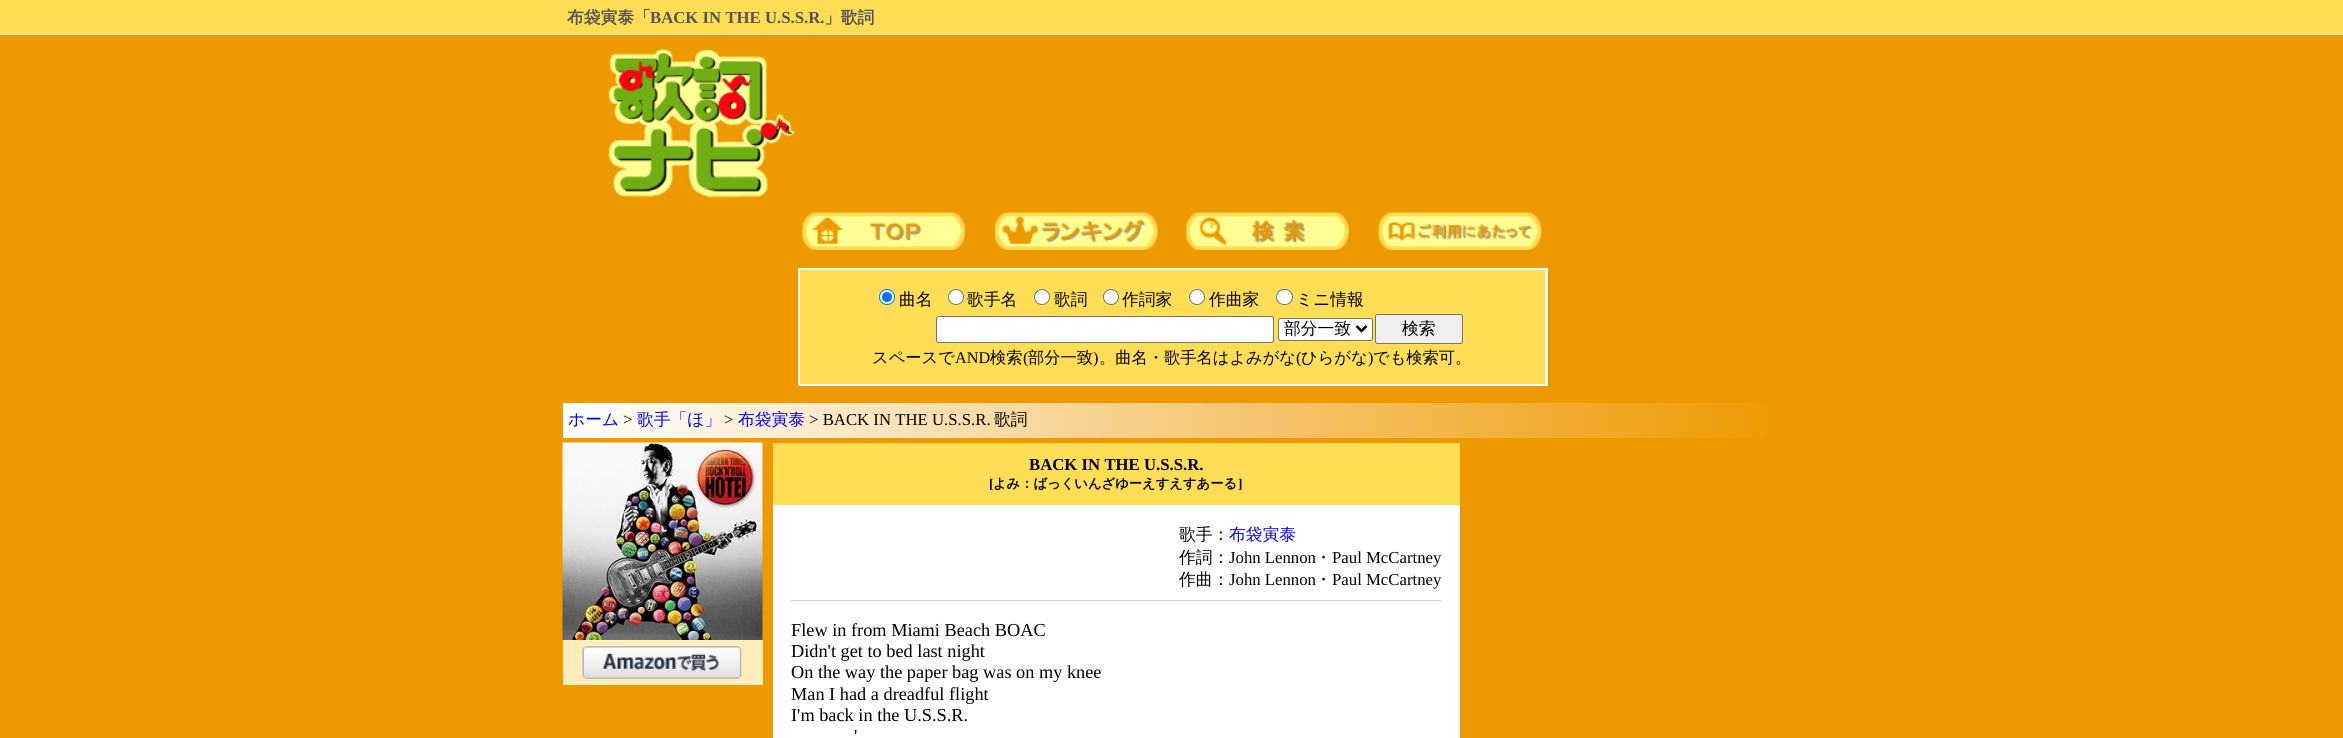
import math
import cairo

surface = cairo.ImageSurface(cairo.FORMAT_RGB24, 2343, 738)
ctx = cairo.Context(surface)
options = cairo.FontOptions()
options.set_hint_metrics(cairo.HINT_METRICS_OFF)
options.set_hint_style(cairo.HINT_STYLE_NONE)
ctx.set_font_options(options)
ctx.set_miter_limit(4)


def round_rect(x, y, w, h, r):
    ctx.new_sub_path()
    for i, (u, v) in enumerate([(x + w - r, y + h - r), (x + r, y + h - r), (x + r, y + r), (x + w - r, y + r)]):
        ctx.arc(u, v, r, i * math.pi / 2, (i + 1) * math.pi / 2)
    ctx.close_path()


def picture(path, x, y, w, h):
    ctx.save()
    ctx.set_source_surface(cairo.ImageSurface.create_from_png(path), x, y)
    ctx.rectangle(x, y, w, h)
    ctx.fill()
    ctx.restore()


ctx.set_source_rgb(0.933, 0.6, 0)
ctx.paint()
ctx.set_source_rgb(1, 0.867, 0.333)
ctx.rectangle(0, 0, 2343, 35)
ctx.fill()
ctx.set_source_rgb(0.6, 0.6, 0.6)
ctx.rectangle(0, 35, 2343, 1)
ctx.fill()
ctx.select_font_face("WenQuanYi Zen Hei", cairo.FONT_SLANT_NORMAL, cairo.FONT_WEIGHT_BOLD)
ctx.set_font_size(16.75)
ctx.set_source_rgb(0.333, 0.333, 0.333)
ctx.move_to(567, 23)
ctx.show_text("布袋寅泰「")
ctx.select_font_face("Liberation Serif", cairo.FONT_SLANT_NORMAL, cairo.FONT_WEIGHT_BOLD)
ctx.move_to(650, 23)
ctx.show_text("BACK IN THE U.S.S.R.")
ctx.select_font_face("WenQuanYi Zen Hei", cairo.FONT_SLANT_NORMAL, cairo.FONT_WEIGHT_BOLD)
ctx.move_to(824, 23)
ctx.show_text("」歌詞")
picture("img1.png", 608, 48, 187, 150)
picture("img2.png", 802, 212, 163, 38)
picture("img3.png", 995, 212, 163, 38)
picture("img4.png", 1186, 212, 163, 38)
picture("img5.png", 1378, 212, 164, 38)
ctx.set_source_rgb(1, 1, 1)
ctx.rectangle(798, 268, 750, 118)
ctx.fill()
ctx.set_source_rgb(1, 0.867, 0.333)
ctx.rectangle(800, 270, 745, 114)
ctx.fill()
ctx.set_source_rgb(1, 1, 1)
ctx.arc(887, 297, 7.5, 0, 2 * math.pi)
ctx.fill_preserve()
ctx.set_source_rgb(0, 0.459, 1)
ctx.set_line_width(1)
ctx.stroke()
ctx.arc(887, 297, 5, 0, 2 * math.pi)
ctx.fill()
ctx.select_font_face("WenQuanYi Zen Hei Medium")
ctx.set_source_rgb(0, 0, 0)
ctx.move_to(899, 305)
ctx.show_text("曲名")
ctx.set_source_rgb(1, 1, 1)
ctx.new_path()
ctx.arc(956, 297, 7.5, 0, 2 * math.pi)
ctx.fill_preserve()
ctx.set_source_rgb(0.463, 0.463, 0.463)
ctx.stroke()
ctx.set_source_rgb(0, 0, 0)
ctx.move_to(967, 305)
ctx.show_text("歌手名")
ctx.set_source_rgb(1, 1, 1)
ctx.new_path()
ctx.arc(1042, 297, 7.5, 0, 2 * math.pi)
ctx.fill_preserve()
ctx.set_source_rgb(0.463, 0.463, 0.463)
ctx.stroke()
ctx.set_source_rgb(0, 0, 0)
ctx.move_to(1054, 305)
ctx.show_text("歌詞")
ctx.set_source_rgb(1, 1, 1)
ctx.new_path()
ctx.arc(1111, 297, 7.5, 0, 2 * math.pi)
ctx.fill_preserve()
ctx.set_source_rgb(0.463, 0.463, 0.463)
ctx.stroke()
ctx.set_source_rgb(0, 0, 0)
ctx.move_to(1122, 305)
ctx.show_text("作詞家")
ctx.set_source_rgb(1, 1, 1)
ctx.new_path()
ctx.arc(1197, 297, 7.5, 0, 2 * math.pi)
ctx.fill_preserve()
ctx.set_source_rgb(0.463, 0.463, 0.463)
ctx.stroke()
ctx.set_source_rgb(0, 0, 0)
ctx.move_to(1209, 305)
ctx.show_text("作曲家")
ctx.set_source_rgb(1, 1, 1)
round_rect(1276.5, 289.5, 16, 15, 7.5)
ctx.fill_preserve()
ctx.set_source_rgb(0.463, 0.463, 0.463)
ctx.stroke()
ctx.set_source_rgb(0, 0, 0)
ctx.move_to(1296, 305)
ctx.show_text("ミニ情報")
ctx.set_source_rgb(1, 1, 1)
round_rect(936.5, 316.5, 337, 26, 2)
ctx.fill_preserve()
ctx.set_source_rgb(0.463, 0.463, 0.463)
ctx.stroke()
ctx.set_source_rgb(1, 1, 1)
round_rect(1278.5, 318.5, 94, 22, 2)
ctx.fill_preserve()
ctx.set_source_rgb(0.463, 0.463, 0.463)
ctx.stroke()
ctx.new_path()
ctx.move_to(1356.5, 326)
ctx.line_to(1361.5, 331)
ctx.line_to(1366.5, 326)
ctx.set_source_rgb(0, 0, 0)
ctx.set_line_width(2.5)
ctx.stroke()
ctx.move_to(1284, 334)
ctx.show_text("部分一致")
ctx.set_source_rgb(0.937, 0.937, 0.937)
round_rect(1375.5, 314.5, 87, 29, 2)
ctx.fill_preserve()
ctx.set_source_rgb(0.463, 0.463, 0.463)
ctx.set_line_width(1)
ctx.stroke()
ctx.set_source_rgb(0, 0, 0)
ctx.move_to(1402, 334)
ctx.show_text("検索")
ctx.set_font_size(16.25)
ctx.move_to(872, 363)
ctx.show_text("スペースで")
ctx.select_font_face("Liberation Serif")
ctx.move_to(955, 363)
ctx.show_text("AND")
ctx.select_font_face("WenQuanYi Zen Hei Medium")
ctx.move_to(990, 363)
ctx.show_text("検索")
ctx.select_font_face("Liberation Serif")
ctx.move_to(1023, 363)
ctx.show_text("(")
ctx.select_font_face("WenQuanYi Zen Hei Medium")
ctx.move_to(1028, 363)
ctx.show_text("部分一致")
ctx.select_font_face("Liberation Serif")
ctx.move_to(1093, 363)
ctx.show_text(")")
ctx.select_font_face("WenQuanYi Zen Hei Medium")
ctx.move_to(1099, 363)
ctx.show_text("。曲名・歌手名はよみがな")
ctx.select_font_face("Liberation Serif")
ctx.move_to(1296, 363)
ctx.show_text("(")
ctx.select_font_face("WenQuanYi Zen Hei Medium")
ctx.move_to(1301, 363)
ctx.show_text("ひらがな")
ctx.select_font_face("Liberation Serif")
ctx.move_to(1368, 363)
ctx.show_text(")")
ctx.select_font_face("WenQuanYi Zen Hei Medium")
ctx.move_to(1373, 363)
ctx.show_text("でも検索可。")
gradient = cairo.LinearGradient(563, 420, 1783, 420)
gradient.add_color_stop_rgba(0, 1, 1, 1, 1)
gradient.add_color_stop_rgba(1, 0.933, 0.6, 0, 1)
ctx.set_source(gradient)
ctx.rectangle(563, 403, 1208, 35)
ctx.fill()
ctx.set_font_size(16.75)
ctx.set_source_rgb(0, 0, 1)
ctx.move_to(568, 425)
ctx.show_text("ホーム")
ctx.select_font_face("Liberation Serif")
ctx.set_source_rgb(0, 0, 0)
ctx.move_to(623, 425)
ctx.show_text(">")
ctx.select_font_face("WenQuanYi Zen Hei Medium")
ctx.set_source_rgb(0, 0, 1)
ctx.move_to(637, 425)
ctx.show_text("歌手「ほ」")
ctx.select_font_face("Liberation Serif")
ctx.set_source_rgb(0, 0, 0)
ctx.move_to(724, 425)
ctx.show_text(">")
ctx.select_font_face("WenQuanYi Zen Hei Medium")
ctx.set_source_rgb(0, 0, 1)
ctx.move_to(738, 425)
ctx.show_text("布袋寅泰")
ctx.select_font_face("Liberation Serif")
ctx.set_source_rgb(0, 0, 0)
ctx.move_to(809, 425)
ctx.show_text("> BACK IN THE U.S.S.R.")
ctx.select_font_face("WenQuanYi Zen Hei Medium")
ctx.move_to(994, 425)
ctx.show_text("歌詞")
picture("img6.png", 562, 442, 201, 198)
ctx.set_source_rgb(1, 0.933, 0.733)
ctx.rectangle(563, 640, 200, 45)
ctx.fill()
picture("img7.png", 582, 646, 160, 33)
ctx.set_source_rgb(1, 0.867, 0.333)
ctx.rectangle(773, 443, 687, 62)
ctx.fill()
ctx.select_font_face("Liberation Serif", cairo.FONT_SLANT_NORMAL, cairo.FONT_WEIGHT_BOLD)
ctx.set_source_rgb(0, 0, 0)
ctx.move_to(1029, 470)
ctx.show_text("BACK IN THE U.S.S.R.")
ctx.set_font_size(13.3)
ctx.move_to(989, 488)
ctx.show_text("[")
ctx.select_font_face("WenQuanYi Zen Hei", cairo.FONT_SLANT_NORMAL, cairo.FONT_WEIGHT_BOLD)
ctx.move_to(993, 488)
ctx.show_text("よみ：ばっくいんざゆーえすえすあーる")
ctx.select_font_face("Liberation Serif", cairo.FONT_SLANT_NORMAL, cairo.FONT_WEIGHT_BOLD)
ctx.move_to(1238, 488)
ctx.show_text("]")
ctx.set_source_rgb(1, 1, 1)
ctx.rectangle(773, 505, 687, 233)
ctx.fill()
ctx.select_font_face("WenQuanYi Zen Hei Medium")
ctx.set_font_size(16.75)
ctx.set_source_rgb(0, 0, 0)
ctx.move_to(1179, 540)
ctx.show_text("歌手：")
ctx.set_source_rgb(0, 0, 1)
ctx.move_to(1229, 540)
ctx.show_text("布袋寅泰")
ctx.set_source_rgb(0, 0, 0)
ctx.move_to(1179, 563)
ctx.show_text("作詞：")
ctx.select_font_face("Liberation Serif")
ctx.move_to(1229, 563)
ctx.show_text("John Lennon")
ctx.select_font_face("WenQuanYi Zen Hei Medium")
ctx.move_to(1315, 563)
ctx.show_text("・")
ctx.select_font_face("Liberation Serif")
ctx.move_to(1332, 563)
ctx.show_text("Paul McCartney")
ctx.select_font_face("WenQuanYi Zen Hei Medium")
ctx.move_to(1179, 585)
ctx.show_text("作曲：")
ctx.select_font_face("Liberation Serif")
ctx.move_to(1229, 585)
ctx.show_text("John Lennon")
ctx.select_font_face("WenQuanYi Zen Hei Medium")
ctx.move_to(1315, 585)
ctx.show_text("・")
ctx.select_font_face("Liberation Serif")
ctx.move_to(1332, 585)
ctx.show_text("Paul McCartney")
ctx.set_source_rgb(0.8, 0.8, 0.8)
ctx.rectangle(791, 600, 650, 1)
ctx.fill()
ctx.set_font_size(18.3)
ctx.set_source_rgb(0, 0, 0)
ctx.move_to(791, 636)
ctx.show_text("Flew in from Miami Beach BOAC")
ctx.move_to(791, 657)
ctx.show_text("Didn't get to bed last night")
ctx.move_to(791, 678)
ctx.show_text("On the way the paper bag was on my knee")
ctx.move_to(791, 700)
ctx.show_text("Man I had a dreadful flight")
ctx.move_to(791, 721)
ctx.show_text("I'm back in the U.S.S.R.")
ctx.move_to(854, 742)
ctx.show_text("'")
surface.write_to_png("page.png")
